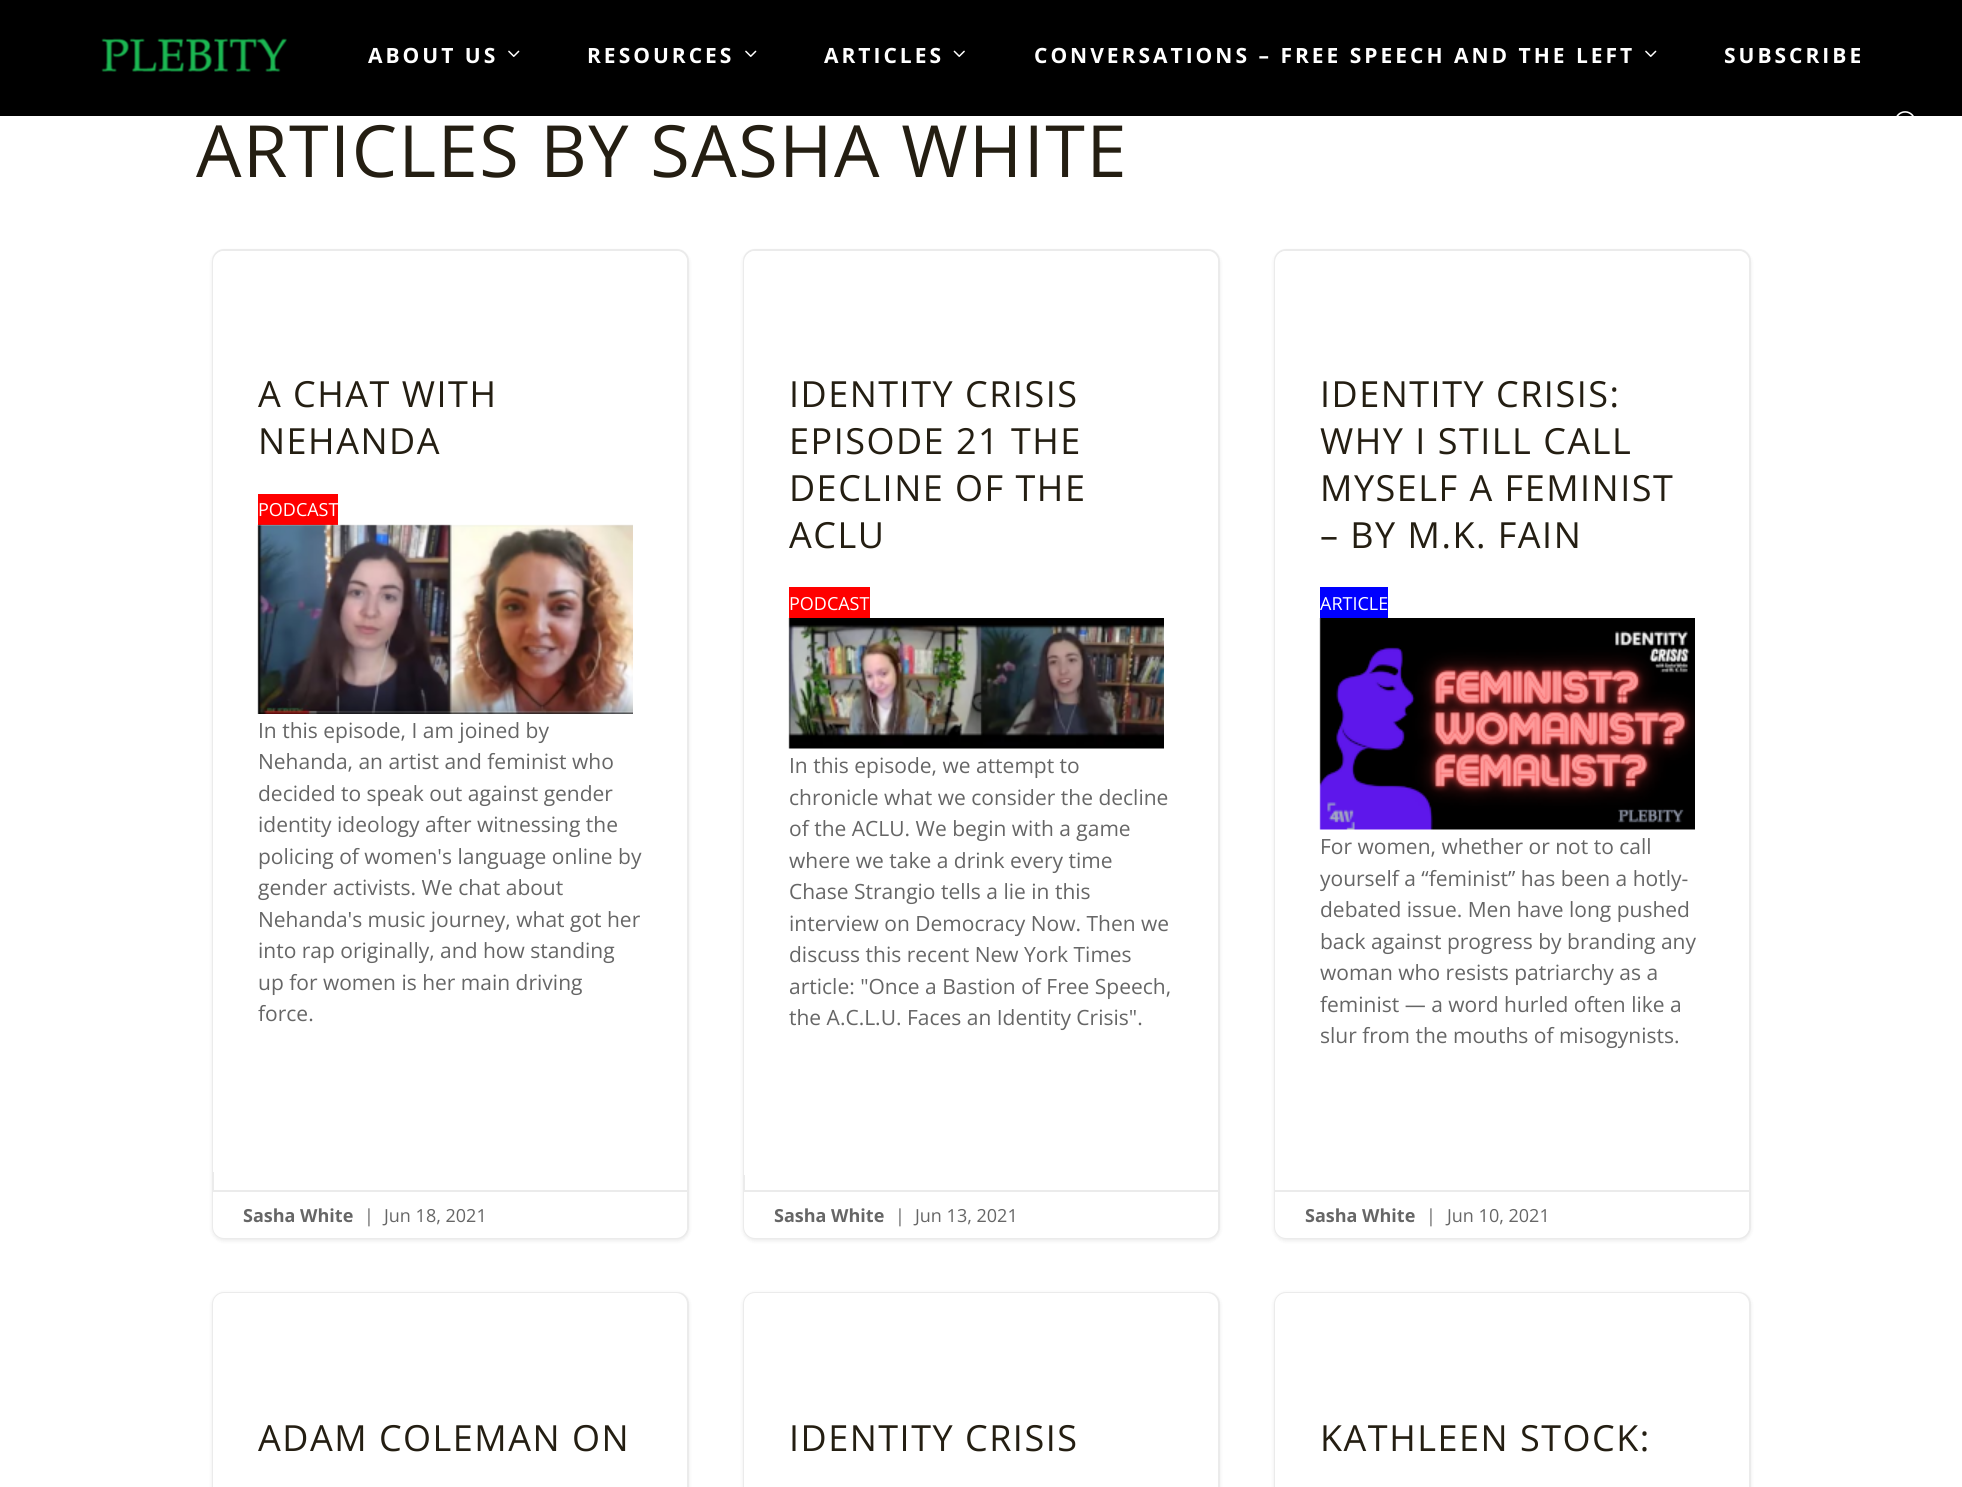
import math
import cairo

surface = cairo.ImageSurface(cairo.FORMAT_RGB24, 1962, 1487)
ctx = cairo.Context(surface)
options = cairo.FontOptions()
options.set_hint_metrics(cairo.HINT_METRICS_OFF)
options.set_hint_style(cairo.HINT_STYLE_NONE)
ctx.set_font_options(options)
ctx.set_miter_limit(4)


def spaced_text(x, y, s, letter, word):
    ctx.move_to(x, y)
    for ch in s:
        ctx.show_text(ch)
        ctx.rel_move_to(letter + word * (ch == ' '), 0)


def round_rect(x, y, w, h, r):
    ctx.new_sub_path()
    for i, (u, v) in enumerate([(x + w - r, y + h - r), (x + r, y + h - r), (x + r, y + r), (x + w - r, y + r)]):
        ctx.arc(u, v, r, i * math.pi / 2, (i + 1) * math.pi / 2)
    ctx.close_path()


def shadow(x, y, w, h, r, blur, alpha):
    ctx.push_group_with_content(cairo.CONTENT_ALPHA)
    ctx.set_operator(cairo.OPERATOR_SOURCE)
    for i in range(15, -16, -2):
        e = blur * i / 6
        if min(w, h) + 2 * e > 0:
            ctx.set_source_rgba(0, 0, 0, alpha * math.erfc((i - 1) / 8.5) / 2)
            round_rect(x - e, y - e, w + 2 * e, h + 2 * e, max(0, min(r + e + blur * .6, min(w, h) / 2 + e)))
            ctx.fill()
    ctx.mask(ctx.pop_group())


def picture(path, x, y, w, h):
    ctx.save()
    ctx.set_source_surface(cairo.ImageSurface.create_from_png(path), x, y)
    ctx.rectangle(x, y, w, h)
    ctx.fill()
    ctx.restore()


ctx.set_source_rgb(1, 1, 1)
ctx.paint()
ctx.set_source_rgb(0, 0, 0)
ctx.rectangle(0, 0, 1962, 116)
ctx.fill()
picture("img1.png", 101, 38, 186, 34)
ctx.select_font_face("Open Sans", cairo.FONT_SLANT_NORMAL, cairo.FONT_WEIGHT_BOLD)
ctx.set_font_size(21)
ctx.set_source_rgb(1, 1, 1)
spaced_text(368, 63, "ABOUT US", 3, 0)
picture("img2.png", 508, 50, 12, 7)
spaced_text(587, 63, "RESOURCES", 3, 0)
picture("img2.png", 745, 50, 12, 7)
spaced_text(824, 63, "ARTICLES", 3, 0)
picture("img3.png", 953, 50, 12, 7)
spaced_text(1034, 63, "CONVERSATIONS – FREE SPEECH AND THE LEFT", 3, 0)
picture("img2.png", 1645, 50, 12, 7)
spaced_text(1724, 63, "SUBSCRIBE", 3, 0)
picture("img4.png", 1896, 111, 18, 5)
ctx.select_font_face("Open Sans")
ctx.set_font_size(72)
ctx.set_source_rgb(0.141, 0.118, 0.071)
spaced_text(196, 177, "ARTICLES BY SASHA WHITE", 1.5, 0)
ctx.set_source_rgb(0, 0, 0)
shadow(212, 251, 477, 990, 12, 2, 0.08)
ctx.set_source_rgb(1, 1, 1)
round_rect(213, 250, 475, 988, 11)
ctx.fill_preserve()
ctx.set_source_rgb(0.918, 0.918, 0.918)
ctx.stroke()
ctx.set_source_rgb(1, 1, 1)
ctx.new_path()
ctx.move_to(224, 251)
ctx.line_to(676, 251)
ctx.curve_to(682, 251, 687, 256, 687, 262)
ctx.line_to(687, 1172)
ctx.line_to(213, 1172)
ctx.line_to(213, 262)
ctx.curve_to(213, 256, 218, 251, 224, 251)
ctx.close_path()
ctx.fill()
ctx.set_font_size(36)
ctx.set_source_rgb(0.141, 0.118, 0.071)
spaced_text(258, 407, "A CHAT WITH", 1.5, 0)
spaced_text(258, 454, "NEHANDA", 1.5, 0)
ctx.set_source_rgb(1, 0, 0)
ctx.rectangle(258, 494, 80, 31)
ctx.fill()
ctx.set_font_size(18)
ctx.set_source_rgb(1, 1, 1)
ctx.move_to(258, 516)
ctx.show_text("PODCAST")
picture("img5.png", 257, 524, 376, 190)
ctx.set_font_size(21)
ctx.set_source_rgb(0.4, 0.4, 0.4)
ctx.move_to(258, 738)
ctx.show_text("In this episode, I am joined by")
ctx.move_to(258, 769)
ctx.show_text("Nehanda, an artist and feminist who")
ctx.move_to(258, 801)
ctx.show_text("decided to speak out against gender")
ctx.move_to(258, 832)
ctx.show_text("identity ideology after witnessing the")
ctx.move_to(258, 864)
ctx.show_text("policing of women's language online by")
ctx.move_to(258, 895)
ctx.show_text("gender activists. We chat about")
ctx.move_to(258, 927)
ctx.show_text("Nehanda's music journey, what got her")
ctx.move_to(258, 958)
ctx.show_text("into rap originally, and how standing")
ctx.move_to(258, 990)
ctx.show_text("up for women is her main driving")
ctx.move_to(258, 1021)
ctx.show_text("force.")
ctx.set_source_rgb(1, 1, 1)
ctx.new_path()
ctx.move_to(213, 1190)
ctx.line_to(687, 1190)
ctx.line_to(687, 1227)
ctx.curve_to(687, 1233, 682, 1238, 676, 1238)
ctx.line_to(224, 1238)
ctx.curve_to(218, 1238, 213, 1233, 213, 1227)
ctx.close_path()
ctx.fill()
ctx.set_source_rgb(0.918, 0.918, 0.918)
ctx.rectangle(213, 1190, 474, 2)
ctx.fill()
ctx.select_font_face("Open Sans", cairo.FONT_SLANT_NORMAL, cairo.FONT_WEIGHT_BOLD)
ctx.set_font_size(18)
ctx.set_source_rgb(0.4, 0.4, 0.4)
ctx.move_to(243, 1222)
ctx.show_text("Sasha White")
ctx.select_font_face("Open Sans")
ctx.move_to(364, 1222)
ctx.show_text("|")
ctx.move_to(384, 1222)
ctx.show_text("Jun 18, 2021")
ctx.set_source_rgb(0, 0, 0)
shadow(743, 251, 477, 990, 12, 2, 0.08)
ctx.set_source_rgb(1, 1, 1)
round_rect(744, 250, 475, 988, 11)
ctx.fill_preserve()
ctx.set_source_rgb(0.918, 0.918, 0.918)
ctx.stroke()
ctx.set_source_rgb(1, 1, 1)
ctx.new_path()
ctx.move_to(755, 251)
ctx.line_to(1207, 251)
ctx.curve_to(1213, 251, 1218, 256, 1218, 262)
ctx.line_to(1218, 1175)
ctx.line_to(744, 1175)
ctx.line_to(744, 262)
ctx.curve_to(744, 256, 749, 251, 755, 251)
ctx.close_path()
ctx.fill()
ctx.set_font_size(36)
ctx.set_source_rgb(0.141, 0.118, 0.071)
spaced_text(789, 407, "IDENTITY CRISIS", 1.5, 0)
spaced_text(789, 454, "EPISODE 21 THE", 1.5, 0)
spaced_text(789, 501, "DECLINE OF THE", 1.5, 0)
spaced_text(789, 548, "ACLU", 1.5, 0)
ctx.set_source_rgb(1, 0, 0)
ctx.rectangle(789, 587, 81, 31)
ctx.fill()
ctx.set_font_size(18)
ctx.set_source_rgb(1, 1, 1)
ctx.move_to(789, 610)
ctx.show_text("PODCAST")
picture("img6.png", 788, 618, 376, 131)
ctx.set_font_size(21)
ctx.set_source_rgb(0.4, 0.4, 0.4)
ctx.move_to(789, 773)
ctx.show_text("In this episode, we attempt to")
ctx.move_to(789, 805)
ctx.show_text("chronicle what we consider the decline")
ctx.move_to(789, 836)
ctx.show_text("of the ACLU. We begin with a game")
ctx.move_to(789, 868)
ctx.show_text("where we take a drink every time")
ctx.move_to(789, 899)
ctx.show_text("Chase Strangio tells a lie in this")
ctx.move_to(789, 931)
ctx.show_text("interview on Democracy Now. Then we")
ctx.move_to(789, 962)
ctx.show_text("discuss this recent New York Times")
ctx.move_to(789, 994)
ctx.show_text("article: \"Once a Bastion of Free Speech,")
ctx.move_to(789, 1025)
ctx.show_text("the A.C.L.U. Faces an Identity Crisis\".")
ctx.set_source_rgb(1, 1, 1)
ctx.new_path()
ctx.move_to(744, 1190)
ctx.line_to(1218, 1190)
ctx.line_to(1218, 1227)
ctx.curve_to(1218, 1233, 1213, 1238, 1207, 1238)
ctx.line_to(755, 1238)
ctx.curve_to(749, 1238, 744, 1233, 744, 1227)
ctx.close_path()
ctx.fill()
ctx.set_source_rgb(0.918, 0.918, 0.918)
ctx.rectangle(744, 1190, 474, 2)
ctx.fill()
ctx.select_font_face("Open Sans", cairo.FONT_SLANT_NORMAL, cairo.FONT_WEIGHT_BOLD)
ctx.set_font_size(18)
ctx.set_source_rgb(0.4, 0.4, 0.4)
ctx.move_to(774, 1222)
ctx.show_text("Sasha White")
ctx.select_font_face("Open Sans")
ctx.move_to(895, 1222)
ctx.show_text("|")
ctx.move_to(915, 1222)
ctx.show_text("Jun 13, 2021")
ctx.set_source_rgb(0, 0, 0)
shadow(1274, 251, 477, 990, 12, 2, 0.08)
ctx.set_source_rgb(1, 1, 1)
round_rect(1275, 250, 475, 988, 11)
ctx.fill_preserve()
ctx.set_source_rgb(0.918, 0.918, 0.918)
ctx.stroke()
ctx.set_source_rgb(1, 1, 1)
ctx.new_path()
ctx.move_to(1286, 251)
ctx.line_to(1738, 251)
ctx.curve_to(1744, 251, 1749, 256, 1749, 262)
ctx.line_to(1749, 1193)
ctx.line_to(1275, 1193)
ctx.line_to(1275, 262)
ctx.curve_to(1275, 256, 1280, 251, 1286, 251)
ctx.close_path()
ctx.fill()
ctx.set_font_size(36)
ctx.set_source_rgb(0.141, 0.118, 0.071)
spaced_text(1320, 407, "IDENTITY CRISIS:", 1.5, 0)
spaced_text(1320, 454, "WHY I STILL CALL", 1.5, 0)
spaced_text(1320, 501, "MYSELF A FEMINIST", 1.5, 0)
spaced_text(1320, 548, "– BY M.K. FAIN", 1.5, 0)
ctx.set_source_rgb(0, 0, 1)
ctx.rectangle(1320, 587, 68, 31)
ctx.fill()
ctx.set_font_size(18)
ctx.set_source_rgb(1, 1, 1)
ctx.move_to(1320, 610)
ctx.show_text("ARTICLE")
picture("img7.png", 1319, 618, 376, 212)
ctx.set_font_size(21)
ctx.set_source_rgb(0.4, 0.4, 0.4)
ctx.move_to(1320, 854)
ctx.show_text("For women, whether or not to call")
ctx.move_to(1320, 886)
ctx.show_text("yourself a “feminist” has been a hotly-")
ctx.move_to(1320, 917)
ctx.show_text("debated issue. Men have long pushed")
ctx.move_to(1320, 949)
ctx.show_text("back against progress by branding any")
ctx.move_to(1320, 980)
ctx.show_text("woman who resists patriarchy as a")
ctx.move_to(1320, 1012)
ctx.show_text("feminist — a word hurled often like a")
ctx.move_to(1320, 1043)
ctx.show_text("slur from the mouths of misogynists.")
ctx.set_source_rgb(1, 1, 1)
ctx.new_path()
ctx.move_to(1275, 1190)
ctx.line_to(1749, 1190)
ctx.line_to(1749, 1227)
ctx.curve_to(1749, 1233, 1744, 1238, 1738, 1238)
ctx.line_to(1286, 1238)
ctx.curve_to(1280, 1238, 1275, 1233, 1275, 1227)
ctx.close_path()
ctx.fill()
ctx.set_source_rgb(0.918, 0.918, 0.918)
ctx.rectangle(1275, 1190, 474, 2)
ctx.fill()
ctx.select_font_face("Open Sans", cairo.FONT_SLANT_NORMAL, cairo.FONT_WEIGHT_BOLD)
ctx.set_font_size(18)
ctx.set_source_rgb(0.4, 0.4, 0.4)
ctx.move_to(1305, 1222)
ctx.show_text("Sasha White")
ctx.select_font_face("Open Sans")
ctx.move_to(1426, 1222)
ctx.show_text("|")
ctx.move_to(1447, 1222)
ctx.show_text("Jun 10, 2021")
ctx.set_source_rgb(0, 0, 0)
shadow(212, 1293, 477, 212, 12, 2, 0.08)
round_rect(213, 1293, 475, 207, 11)
ctx.set_source_rgb(0.918, 0.918, 0.918)
ctx.stroke()
ctx.set_source_rgb(1, 1, 1)
ctx.new_path()
ctx.move_to(224, 1293)
ctx.line_to(676, 1293)
ctx.curve_to(682, 1293, 687, 1298, 687, 1304)
ctx.line_to(687, 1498)
ctx.line_to(213, 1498)
ctx.line_to(213, 1304)
ctx.curve_to(213, 1298, 218, 1293, 224, 1293)
ctx.close_path()
ctx.fill()
ctx.set_font_size(36)
ctx.set_source_rgb(0.141, 0.118, 0.071)
spaced_text(258, 1451, "ADAM COLEMAN ON", 1.5, 0)
ctx.set_source_rgb(0, 0, 0)
shadow(743, 1293, 477, 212, 12, 2, 0.08)
round_rect(744, 1293, 475, 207, 11)
ctx.set_source_rgb(0.918, 0.918, 0.918)
ctx.stroke()
ctx.set_source_rgb(1, 1, 1)
ctx.new_path()
ctx.move_to(755, 1293)
ctx.line_to(1207, 1293)
ctx.curve_to(1213, 1293, 1218, 1298, 1218, 1304)
ctx.line_to(1218, 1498)
ctx.line_to(744, 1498)
ctx.line_to(744, 1304)
ctx.curve_to(744, 1298, 749, 1293, 755, 1293)
ctx.close_path()
ctx.fill()
ctx.set_source_rgb(0.141, 0.118, 0.071)
spaced_text(789, 1451, "IDENTITY CRISIS", 1.5, 0)
ctx.set_source_rgb(0, 0, 0)
shadow(1274, 1293, 477, 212, 12, 2, 0.08)
round_rect(1275, 1293, 475, 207, 11)
ctx.set_source_rgb(0.918, 0.918, 0.918)
ctx.stroke()
ctx.set_source_rgb(1, 1, 1)
ctx.new_path()
ctx.move_to(1286, 1293)
ctx.line_to(1738, 1293)
ctx.curve_to(1744, 1293, 1749, 1298, 1749, 1304)
ctx.line_to(1749, 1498)
ctx.line_to(1275, 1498)
ctx.line_to(1275, 1304)
ctx.curve_to(1275, 1298, 1280, 1293, 1286, 1293)
ctx.close_path()
ctx.fill()
ctx.set_source_rgb(0.141, 0.118, 0.071)
spaced_text(1320, 1451, "KATHLEEN STOCK:", 1.5, 0)
surface.write_to_png("page.png")
